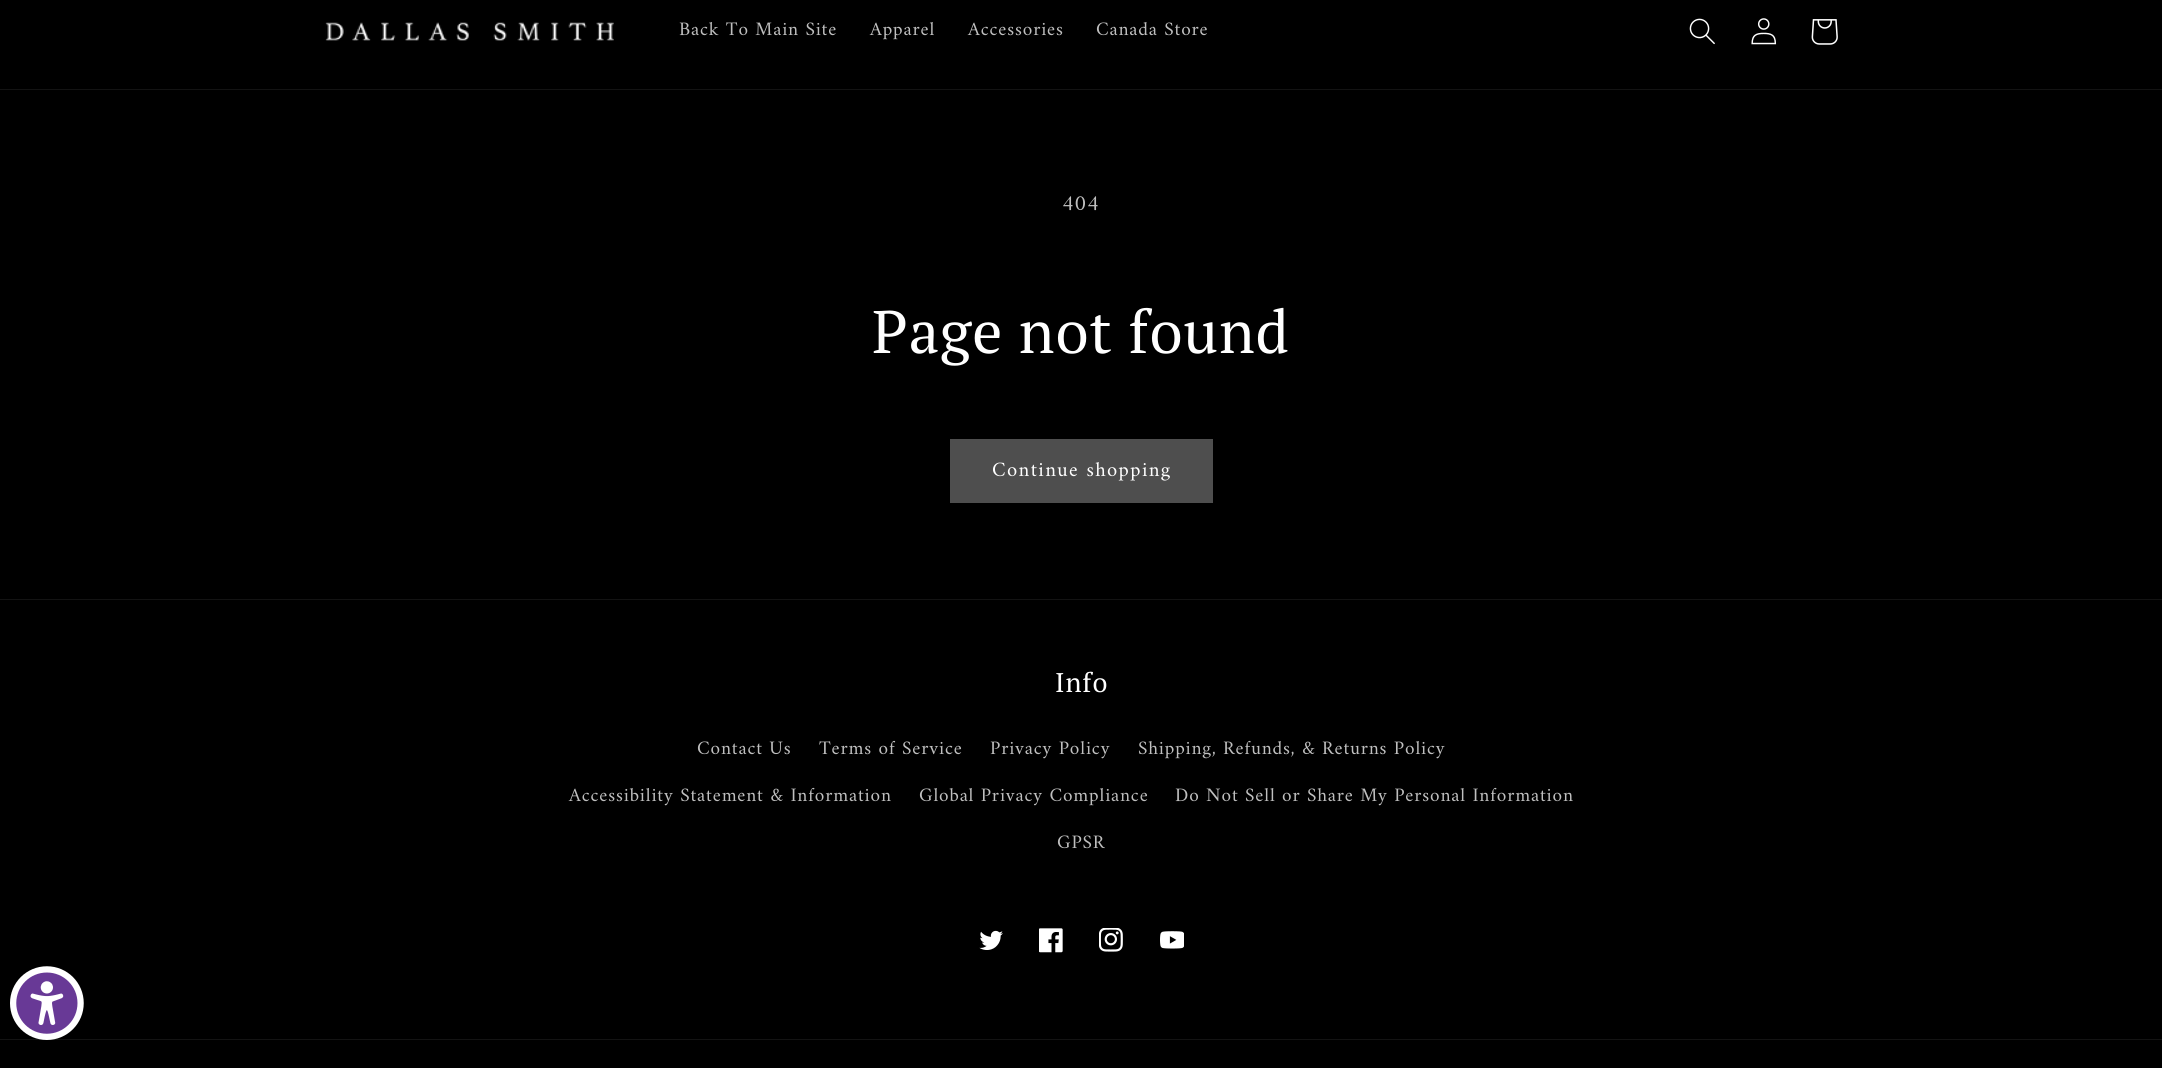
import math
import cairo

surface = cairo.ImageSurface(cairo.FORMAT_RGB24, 2162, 1068)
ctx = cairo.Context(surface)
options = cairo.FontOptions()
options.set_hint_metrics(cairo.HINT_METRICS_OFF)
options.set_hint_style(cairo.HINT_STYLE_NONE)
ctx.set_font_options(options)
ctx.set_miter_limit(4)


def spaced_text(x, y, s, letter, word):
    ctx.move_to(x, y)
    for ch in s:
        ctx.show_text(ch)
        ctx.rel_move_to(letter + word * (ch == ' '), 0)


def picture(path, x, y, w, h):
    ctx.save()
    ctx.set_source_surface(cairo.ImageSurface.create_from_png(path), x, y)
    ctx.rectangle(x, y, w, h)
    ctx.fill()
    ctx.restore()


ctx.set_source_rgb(0, 0, 0)
ctx.paint()
ctx.set_source_rgb(0.078, 0.078, 0.078)
ctx.rectangle(0, 89, 2162, 1)
ctx.fill()
picture("img1.png", 325, 22, 289, 19)
ctx.select_font_face("Amiri")
ctx.set_font_size(19.25)
ctx.set_source_rgb(0.749, 0.749, 0.749)
spaced_text(679, 35, "Back To Main Site", 0.85, 0)
spaced_text(870, 35, "Apparel", 0.85, 0)
spaced_text(968, 35, "Accessories", 0.85, 0)
spaced_text(1096, 35, "Canada Store", 0.85, 0)
picture("img2.png", 1689, 18, 26, 27)
picture("img3.png", 1751, 18, 26, 27)
picture("img4.png", 1811, 19, 27, 26)
ctx.set_font_size(22)
spaced_text(1062, 210, "404", 0.85, 0)
ctx.select_font_face("PT Serif")
ctx.set_font_size(60)
ctx.set_source_rgb(1, 1, 1)
spaced_text(872, 353, "Page not found", 0.9, 0)
ctx.set_source_rgb(0.306, 0.306, 0.306)
ctx.rectangle(950, 439, 263, 64)
ctx.fill()
ctx.select_font_face("Amiri")
ctx.set_font_size(20.6)
ctx.set_source_rgb(1, 1, 1)
spaced_text(992, 476, "Continue shopping", 1.4, 0)
ctx.set_source_rgb(0.078, 0.078, 0.078)
ctx.rectangle(0, 599, 2162, 1)
ctx.fill()
ctx.select_font_face("PT Serif")
ctx.set_font_size(27)
ctx.set_source_rgb(1, 1, 1)
spaced_text(1055, 692, "Info", 0.9, 0)
ctx.select_font_face("Amiri")
ctx.set_font_size(19.25)
ctx.set_source_rgb(0.749, 0.749, 0.749)
spaced_text(697, 754, "Contact Us", 0.85, 0)
spaced_text(819, 754, "Terms of Service", 0.85, 0)
spaced_text(990, 754, "Privacy Policy", 0.85, 0)
spaced_text(1138, 754, "Shipping, Refunds, & Returns Policy", 0.85, 0)
spaced_text(569, 801, "Accessibility Statement & Information", 0.85, 0)
spaced_text(919, 801, "Global Privacy Compliance", 0.85, 0)
spaced_text(1175, 801, "Do Not Sell or Share My Personal Information", 0.85, 0)
spaced_text(1057, 848, "GPSR", 0.85, 0)
picture("img5.png", 979, 930, 24, 20)
picture("img6.png", 1039, 928, 24, 25)
picture("img7.png", 1099, 928, 24, 24)
picture("img8.png", 1160, 931, 24, 18)
ctx.set_source_rgb(0.078, 0.078, 0.078)
ctx.rectangle(0, 1039, 2162, 1)
ctx.fill()
picture("img9.png", 10, 966, 74, 74)
surface.write_to_png("page.png")
